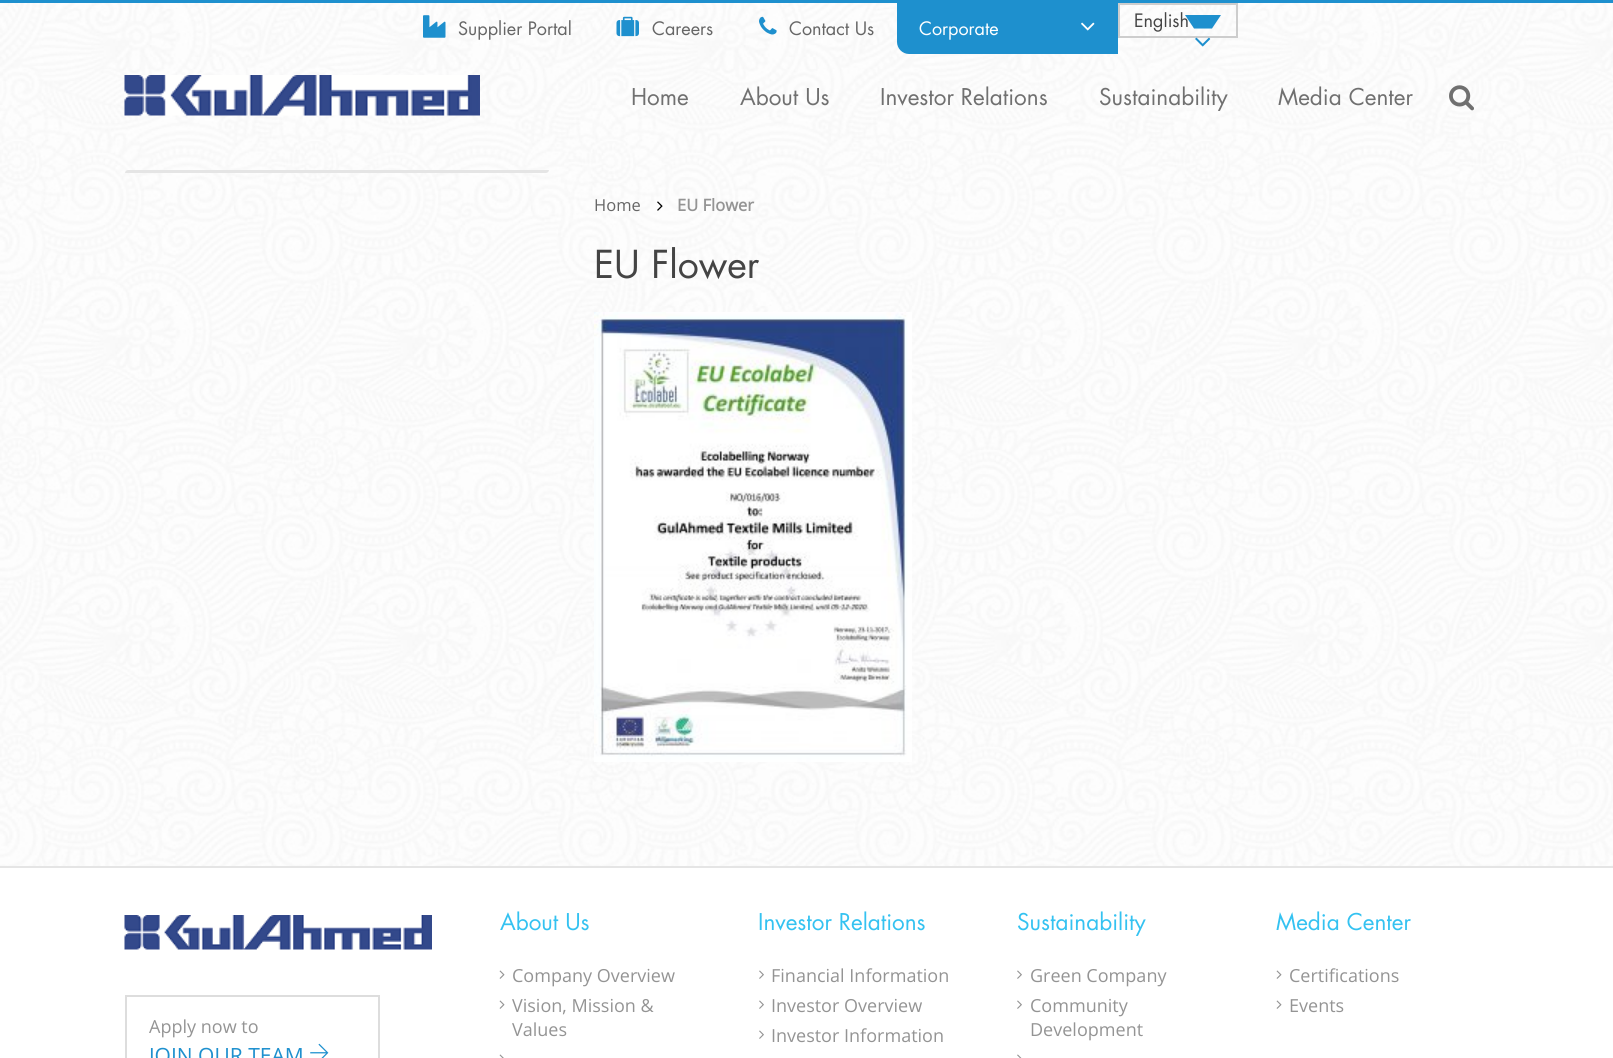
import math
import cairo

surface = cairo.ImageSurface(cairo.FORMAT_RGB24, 1613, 1058)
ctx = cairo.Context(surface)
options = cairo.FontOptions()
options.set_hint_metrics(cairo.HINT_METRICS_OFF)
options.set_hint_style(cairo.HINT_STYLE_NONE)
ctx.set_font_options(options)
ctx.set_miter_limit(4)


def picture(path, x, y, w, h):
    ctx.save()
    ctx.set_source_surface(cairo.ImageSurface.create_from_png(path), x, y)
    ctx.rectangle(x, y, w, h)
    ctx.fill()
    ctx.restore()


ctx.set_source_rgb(1, 1, 1)
ctx.paint()
picture("img1.png", 0, 3, 1613, 863)
ctx.set_source_rgb(0.118, 0.565, 0.808)
ctx.rectangle(0, 0, 1613, 3)
ctx.fill()
picture("img2.png", 423, 15, 23, 23)
ctx.select_font_face("Futura")
ctx.set_font_size(18)
ctx.set_source_rgb(0.4, 0.4, 0.4)
ctx.move_to(458, 35)
ctx.show_text("Supplier Portal")
picture("img3.png", 616, 16, 23, 21)
ctx.move_to(652, 35)
ctx.show_text("Careers")
picture("img4.png", 759, 16, 18, 19)
ctx.move_to(789, 35)
ctx.show_text("Contact Us")
ctx.set_source_rgb(0.118, 0.565, 0.808)
ctx.new_path()
ctx.move_to(897, 3)
ctx.line_to(1118, 3)
ctx.line_to(1118, 54)
ctx.line_to(909, 54)
ctx.curve_to(902.5, 54, 897, 48.5, 897, 42)
ctx.close_path()
ctx.fill()
ctx.set_source_rgb(1, 1, 1)
ctx.move_to(919, 35)
ctx.show_text("Corporate")
picture("img5.png", 1081, 22, 14, 9)
ctx.rectangle(1119, 4, 118, 33)
ctx.set_source_rgb(0.804, 0.804, 0.804)
ctx.stroke()
ctx.set_source_rgb(0.267, 0.267, 0.267)
ctx.move_to(1134, 27)
ctx.show_text("English")
ctx.set_source_rgb(0.118, 0.565, 0.808)
ctx.new_path()
ctx.move_to(1185, 15)
ctx.line_to(1221, 15)
ctx.line_to(1212, 28.5)
ctx.line_to(1194, 28.5)
ctx.close_path()
ctx.fill()
picture("img6.png", 1195, 37, 16, 10)
picture("img7.png", 124, 75, 356, 41)
ctx.set_font_size(22.5)
ctx.set_source_rgb(0.439, 0.439, 0.439)
ctx.move_to(631, 105)
ctx.show_text("Home")
ctx.move_to(740, 105)
ctx.show_text("About Us")
ctx.move_to(880, 105)
ctx.show_text("Investor Relations")
ctx.move_to(1099, 105)
ctx.show_text("Sustainability")
ctx.move_to(1278, 105)
ctx.show_text("Media Center")
picture("img8.png", 1449, 85, 25, 26)
ctx.set_source_rgb(0.898, 0.898, 0.898)
ctx.new_path()
ctx.move_to(128, 170)
ctx.line_to(549, 170)
ctx.curve_to(549, 171.5, 547.5, 173, 546, 173)
ctx.line_to(125, 173)
ctx.curve_to(125, 171.5, 126.5, 170, 128, 170)
ctx.close_path()
ctx.fill()
ctx.select_font_face("Open Sans")
ctx.set_font_size(16.5)
ctx.set_source_rgb(0.4, 0.4, 0.4)
ctx.move_to(594, 211)
ctx.show_text("Home")
picture("img9.png", 657, 201, 6, 10)
ctx.select_font_face("Open Sans", cairo.FONT_SLANT_NORMAL, cairo.FONT_WEIGHT_BOLD)
ctx.set_source_rgb(0.58, 0.58, 0.58)
ctx.move_to(677, 211)
ctx.show_text("EU Flower")
ctx.select_font_face("Futura")
ctx.set_font_size(37.5)
ctx.set_source_rgb(0.267, 0.267, 0.267)
ctx.move_to(594, 278)
ctx.show_text("EU Flower")
picture("img10.png", 594, 312, 318, 450)
ctx.set_source_rgb(0.898, 0.898, 0.898)
ctx.rectangle(0, 866, 1613, 2)
ctx.fill()
picture("img11.png", 124, 915, 308, 35)
ctx.rectangle(126, 996, 253, 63)
ctx.set_source_rgb(0.867, 0.867, 0.867)
ctx.stroke()
ctx.select_font_face("Open Sans")
ctx.set_font_size(18)
ctx.set_source_rgb(0.58, 0.58, 0.58)
ctx.move_to(149, 1033)
ctx.show_text("Apply now to")
ctx.set_font_size(21)
ctx.set_source_rgb(0.118, 0.565, 0.808)
ctx.move_to(149, 1063)
ctx.show_text("JOIN OUR TEAM")
picture("img12.png", 310, 1043, 19, 15)
ctx.select_font_face("Futura")
ctx.set_font_size(22.5)
ctx.set_source_rgb(0.204, 0.761, 0.945)
ctx.move_to(500, 930)
ctx.show_text("About Us")
picture("img13.png", 499, 970, 6, 9)
ctx.select_font_face("Open Sans")
ctx.set_font_size(18)
ctx.set_source_rgb(0.58, 0.58, 0.58)
ctx.move_to(512, 982)
ctx.show_text("Company Overview")
picture("img13.png", 499, 1000, 6, 9)
ctx.move_to(512, 1012)
ctx.show_text("Vision, Mission &")
ctx.move_to(512, 1036)
ctx.show_text("Values")
picture("img14.png", 499, 1054, 5, 4)
ctx.select_font_face("Futura")
ctx.set_font_size(22.5)
ctx.set_source_rgb(0.204, 0.761, 0.945)
ctx.move_to(758, 930)
ctx.show_text("Investor Relations")
picture("img15.png", 759, 970, 5, 9)
ctx.select_font_face("Open Sans")
ctx.set_font_size(18)
ctx.set_source_rgb(0.58, 0.58, 0.58)
ctx.move_to(771, 982)
ctx.show_text("Financial Information")
picture("img15.png", 759, 1000, 5, 9)
ctx.move_to(771, 1012)
ctx.show_text("Investor Overview")
picture("img15.png", 759, 1030, 5, 9)
ctx.move_to(771, 1042)
ctx.show_text("Investor Information")
ctx.select_font_face("Futura")
ctx.set_font_size(22.5)
ctx.set_source_rgb(0.204, 0.761, 0.945)
ctx.move_to(1017, 930)
ctx.show_text("Sustainability")
picture("img15.png", 1017, 970, 5, 9)
ctx.select_font_face("Open Sans")
ctx.set_font_size(18)
ctx.set_source_rgb(0.58, 0.58, 0.58)
ctx.move_to(1030, 982)
ctx.show_text("Green Company")
picture("img15.png", 1017, 1000, 5, 9)
ctx.move_to(1030, 1012)
ctx.show_text("Community")
ctx.move_to(1030, 1036)
ctx.show_text("Development")
picture("img16.png", 1017, 1054, 5, 4)
ctx.select_font_face("Futura")
ctx.set_font_size(22.5)
ctx.set_source_rgb(0.204, 0.761, 0.945)
ctx.move_to(1276, 930)
ctx.show_text("Media Center")
picture("img13.png", 1276, 970, 6, 9)
ctx.select_font_face("Open Sans")
ctx.set_font_size(18)
ctx.set_source_rgb(0.58, 0.58, 0.58)
ctx.move_to(1289, 982)
ctx.show_text("Certifications")
picture("img13.png", 1276, 1000, 6, 9)
ctx.move_to(1289, 1012)
ctx.show_text("Events")
surface.write_to_png("page.png")
